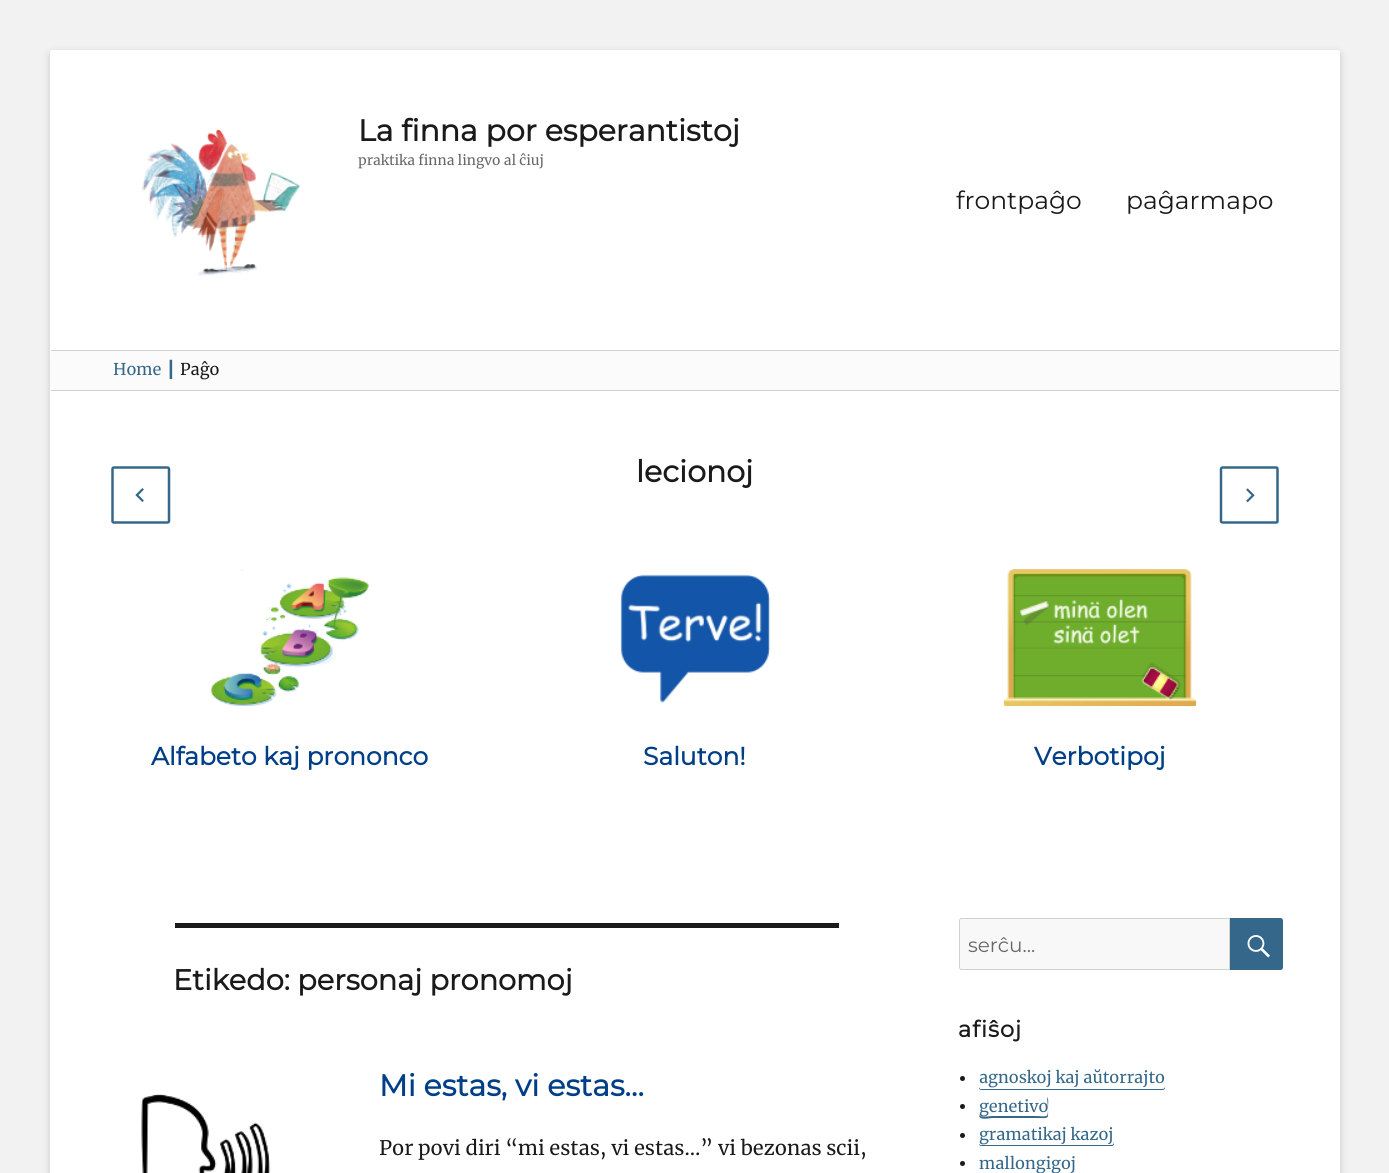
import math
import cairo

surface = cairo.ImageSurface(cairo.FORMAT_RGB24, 1389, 1173)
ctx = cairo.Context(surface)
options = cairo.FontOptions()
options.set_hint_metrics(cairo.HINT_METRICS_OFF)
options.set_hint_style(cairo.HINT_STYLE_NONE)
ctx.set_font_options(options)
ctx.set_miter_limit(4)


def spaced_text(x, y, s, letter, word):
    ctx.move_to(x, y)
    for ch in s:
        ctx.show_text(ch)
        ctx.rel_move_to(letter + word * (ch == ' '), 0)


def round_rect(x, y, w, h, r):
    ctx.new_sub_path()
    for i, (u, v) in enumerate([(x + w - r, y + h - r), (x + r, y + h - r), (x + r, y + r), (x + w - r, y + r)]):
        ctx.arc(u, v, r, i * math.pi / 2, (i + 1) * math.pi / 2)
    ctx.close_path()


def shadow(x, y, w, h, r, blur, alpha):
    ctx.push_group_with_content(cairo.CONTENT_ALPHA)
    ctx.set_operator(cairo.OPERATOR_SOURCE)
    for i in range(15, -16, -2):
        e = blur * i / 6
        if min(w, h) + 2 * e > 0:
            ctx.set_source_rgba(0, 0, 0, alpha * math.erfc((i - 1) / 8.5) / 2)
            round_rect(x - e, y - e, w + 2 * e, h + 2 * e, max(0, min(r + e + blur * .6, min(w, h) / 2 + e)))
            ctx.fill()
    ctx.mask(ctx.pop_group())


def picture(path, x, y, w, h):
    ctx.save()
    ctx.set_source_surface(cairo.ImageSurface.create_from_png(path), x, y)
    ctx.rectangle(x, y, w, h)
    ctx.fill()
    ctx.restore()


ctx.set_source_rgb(0.949, 0.949, 0.949)
ctx.paint()
ctx.set_source_rgb(0.392, 0.392, 0.392)
shadow(50, 53, 1290, 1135, 2.5, 4, 0.3)
ctx.set_source_rgb(1, 1, 1)
round_rect(50, 50, 1290, 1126, 2.5)
ctx.fill()
ctx.set_source_rgb(0.82, 0.82, 0.82)
ctx.rectangle(51, 350, 1288, 1)
ctx.fill()
picture("img1.png", 141, 129, 160, 147)
ctx.select_font_face("Montserrat", cairo.FONT_SLANT_NORMAL, cairo.FONT_WEIGHT_BOLD)
ctx.set_font_size(30)
ctx.set_source_rgb(0.102, 0.102, 0.102)
ctx.move_to(358, 141)
ctx.show_text("La finna por esperantistoj")
ctx.select_font_face("Merriweather")
ctx.set_font_size(13.75)
ctx.set_source_rgb(0.408, 0.408, 0.408)
ctx.move_to(358, 165)
ctx.show_text("praktika finna lingvo al ĉiuj")
ctx.select_font_face("Montserrat Thin")
ctx.set_font_size(25)
ctx.set_source_rgb(0.102, 0.102, 0.102)
ctx.move_to(956, 209)
ctx.show_text("frontpaĝo")
ctx.move_to(1126, 209)
ctx.show_text("paĝarmapo")
ctx.set_source_rgb(0.984, 0.984, 0.984)
round_rect(50, 351, 1290, 40, 2.5)
ctx.fill()
ctx.set_source_rgb(0.82, 0.82, 0.82)
ctx.rectangle(51, 390, 1288, 1)
ctx.fill()
ctx.select_font_face("Merriweather")
ctx.set_font_size(16.25)
ctx.set_source_rgb(0.204, 0.404, 0.541)
ctx.move_to(113, 375)
ctx.show_text("Home")
ctx.select_font_face("DejaVu Sans")
ctx.move_to(166, 375)
ctx.show_text("┃")
ctx.select_font_face("Merriweather")
ctx.set_source_rgb(0.102, 0.102, 0.102)
ctx.move_to(180, 375)
ctx.show_text("Paĝo")
ctx.select_font_face("Montserrat", cairo.FONT_SLANT_NORMAL, cairo.FONT_WEIGHT_BOLD)
ctx.set_font_size(30)
ctx.move_to(636, 482)
ctx.show_text("lecionoj")
ctx.new_path()
ctx.move_to(169, 469)
ctx.line_to(169, 521.5)
ctx.curve_to(169, 522, 168, 522.5, 167.5, 522.5)
ctx.line_to(114, 522.5)
ctx.curve_to(113, 522.5, 112.5, 522, 112.5, 521.5)
ctx.line_to(112.5, 469)
ctx.curve_to(112.5, 468, 113, 467.5, 114, 467.5)
ctx.line_to(167.5, 467.5)
ctx.curve_to(168, 467.5, 169, 468, 169, 469)
ctx.close_path()
ctx.set_source_rgb(0.204, 0.404, 0.541)
ctx.set_line_width(2.5)
ctx.stroke()
picture("img2.png", 135, 488, 9, 14)
ctx.new_path()
ctx.move_to(1221, 521.5)
ctx.line_to(1221, 469)
ctx.curve_to(1221, 468, 1222, 467.5, 1222.5, 467.5)
ctx.line_to(1276, 467.5)
ctx.curve_to(1277, 467.5, 1277.5, 468, 1277.5, 469)
ctx.line_to(1277.5, 521.5)
ctx.curve_to(1277.5, 522, 1277, 522.5, 1276, 522.5)
ctx.line_to(1222.5, 522.5)
ctx.curve_to(1222, 522.5, 1221, 522, 1221, 521.5)
ctx.close_path()
ctx.stroke()
picture("img3.png", 1246, 488, 9, 15)
picture("img4.png", 211, 569, 158, 138)
ctx.set_font_size(25)
ctx.set_source_rgb(0, 0.247, 0.529)
ctx.move_to(151, 765)
ctx.show_text("Alfabeto kaj prononco")
picture("img5.png", 620, 574, 151, 129)
ctx.move_to(643, 765)
ctx.show_text("Saluton!")
picture("img6.png", 1003, 569, 194, 138)
ctx.move_to(1034, 765)
ctx.show_text("Verbotipoj")
ctx.set_source_rgb(0.102, 0.102, 0.102)
ctx.rectangle(175, 923, 664, 5)
ctx.fill()
ctx.set_font_size(28.75)
ctx.move_to(173, 990)
ctx.show_text("Etikedo: personaj pronomoj")
picture("img7.png", 141, 1094, 130, 79)
ctx.set_font_size(30)
ctx.set_source_rgb(0, 0.247, 0.529)
ctx.move_to(379, 1096)
ctx.show_text("Mi estas, vi estas…")
ctx.select_font_face("Merriweather")
ctx.set_font_size(20)
ctx.set_source_rgb(0.102, 0.102, 0.102)
ctx.move_to(379, 1155)
ctx.show_text("Por povi diri “mi estas, vi estas…” vi bezonas scii,")
ctx.set_source_rgb(0.969, 0.969, 0.969)
ctx.new_path()
ctx.move_to(961.5, 918.5)
ctx.line_to(1229.5, 918.5)
ctx.line_to(1229.5, 969.5)
ctx.line_to(961.5, 969.5)
ctx.curve_to(960.5, 969.5, 959.5, 968.5, 959.5, 967.5)
ctx.line_to(959.5, 920.5)
ctx.curve_to(959.5, 919.5, 960.5, 918.5, 961.5, 918.5)
ctx.close_path()
ctx.fill_preserve()
ctx.set_source_rgb(0.82, 0.82, 0.82)
ctx.set_line_width(1)
ctx.stroke()
ctx.select_font_face("Montserrat Thin")
ctx.set_source_rgb(0.408, 0.408, 0.408)
ctx.move_to(968, 952)
ctx.show_text("serĉu...")
ctx.set_source_rgb(0.204, 0.404, 0.541)
ctx.new_path()
ctx.move_to(1231.5, 919.5)
ctx.line_to(1280.5, 919.5)
ctx.curve_to(1281, 919.5, 1281.5, 920, 1281.5, 920.5)
ctx.line_to(1281.5, 967.5)
ctx.curve_to(1281.5, 968, 1281, 968.5, 1280.5, 968.5)
ctx.line_to(1231.5, 968.5)
ctx.close_path()
ctx.fill_preserve()
ctx.set_line_width(3)
ctx.stroke()
picture("img8.png", 1247, 935, 23, 23)
ctx.select_font_face("Montserrat", cairo.FONT_SLANT_NORMAL, cairo.FONT_WEIGHT_BOLD)
ctx.set_font_size(22.5)
ctx.set_source_rgb(0.102, 0.102, 0.102)
spaced_text(958, 1037, "afiŝoj", 1, 0)
ctx.new_path()
ctx.arc(962.5, 1078.5, 2.5, 0, 2 * math.pi)
ctx.fill()
ctx.set_source_rgb(0.204, 0.404, 0.541)
ctx.new_path()
ctx.move_to(979, 1087)
ctx.line_to(979, 1088)
ctx.curve_to(979, 1089, 980, 1090, 982, 1090)
ctx.line_to(1162, 1090)
ctx.curve_to(1164, 1090, 1165, 1089, 1165, 1088)
ctx.line_to(1165, 1086)
ctx.curve_to(1165, 1088, 1164, 1089, 1162, 1089)
ctx.line_to(981, 1089)
ctx.curve_to(980, 1089, 979, 1088, 979, 1087)
ctx.close_path()
ctx.fill()
ctx.select_font_face("Merriweather")
ctx.set_font_size(16.25)
ctx.move_to(979, 1083)
ctx.show_text("agnoskoj kaj aŭtorrajto")
ctx.set_source_rgb(0.102, 0.102, 0.102)
ctx.new_path()
ctx.arc(962.5, 1106.5, 2.5, 0, 2 * math.pi)
ctx.fill()
ctx.set_source_rgb(0.204, 0.404, 0.541)
ctx.new_path()
ctx.move_to(979, 1115)
ctx.curve_to(979, 1121, 990, 1118, 992, 1118)
ctx.line_to(1035, 1118)
ctx.curve_to(1050, 1118, 1048, 1120, 1048, 1107)
ctx.curve_to(1048, 1105, 1049, 1099, 1047, 1097)
ctx.line_to(1048, 1108)
ctx.curve_to(1048, 1119, 1047, 1116, 1034, 1116)
ctx.line_to(992, 1116)
ctx.curve_to(990, 1116, 981, 1118, 979, 1115)
ctx.close_path()
ctx.fill()
ctx.move_to(979, 1112)
ctx.show_text("genetivo")
ctx.set_source_rgb(0.102, 0.102, 0.102)
ctx.new_path()
ctx.arc(962.5, 1135.5, 2.5, 0, 2 * math.pi)
ctx.fill()
ctx.set_source_rgb(0.204, 0.404, 0.541)
ctx.new_path()
ctx.move_to(979, 1144)
ctx.curve_to(979, 1145, 980, 1146, 982, 1146)
ctx.line_to(1112, 1146)
ctx.curve_to(1113, 1146, 1114, 1145, 1114, 1144)
ctx.line_to(1114, 1126)
ctx.line_to(1114, 1142)
ctx.curve_to(1114, 1144, 1113, 1145, 1111, 1145)
ctx.line_to(981, 1145)
ctx.curve_to(980, 1145, 979, 1144, 979, 1144)
ctx.close_path()
ctx.fill()
ctx.move_to(979, 1140)
ctx.show_text("gramatikaj kazoj")
ctx.set_source_rgb(0.102, 0.102, 0.102)
ctx.new_path()
ctx.arc(962.5, 1163.5, 2.5, 0, 2 * math.pi)
ctx.fill()
ctx.set_source_rgb(0.204, 0.404, 0.541)
ctx.new_path()
ctx.move_to(979, 1172)
ctx.curve_to(979, 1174, 980, 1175, 982, 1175)
ctx.line_to(1072, 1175)
ctx.curve_to(1074, 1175, 1075, 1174, 1075, 1172)
ctx.line_to(1075, 1171)
ctx.curve_to(1075, 1173, 1074, 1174, 1072, 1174)
ctx.line_to(981, 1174)
ctx.curve_to(980, 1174, 979, 1173, 979, 1172)
ctx.close_path()
ctx.fill()
ctx.move_to(979, 1169)
ctx.show_text("mallongigoj")
surface.write_to_png("page.png")
